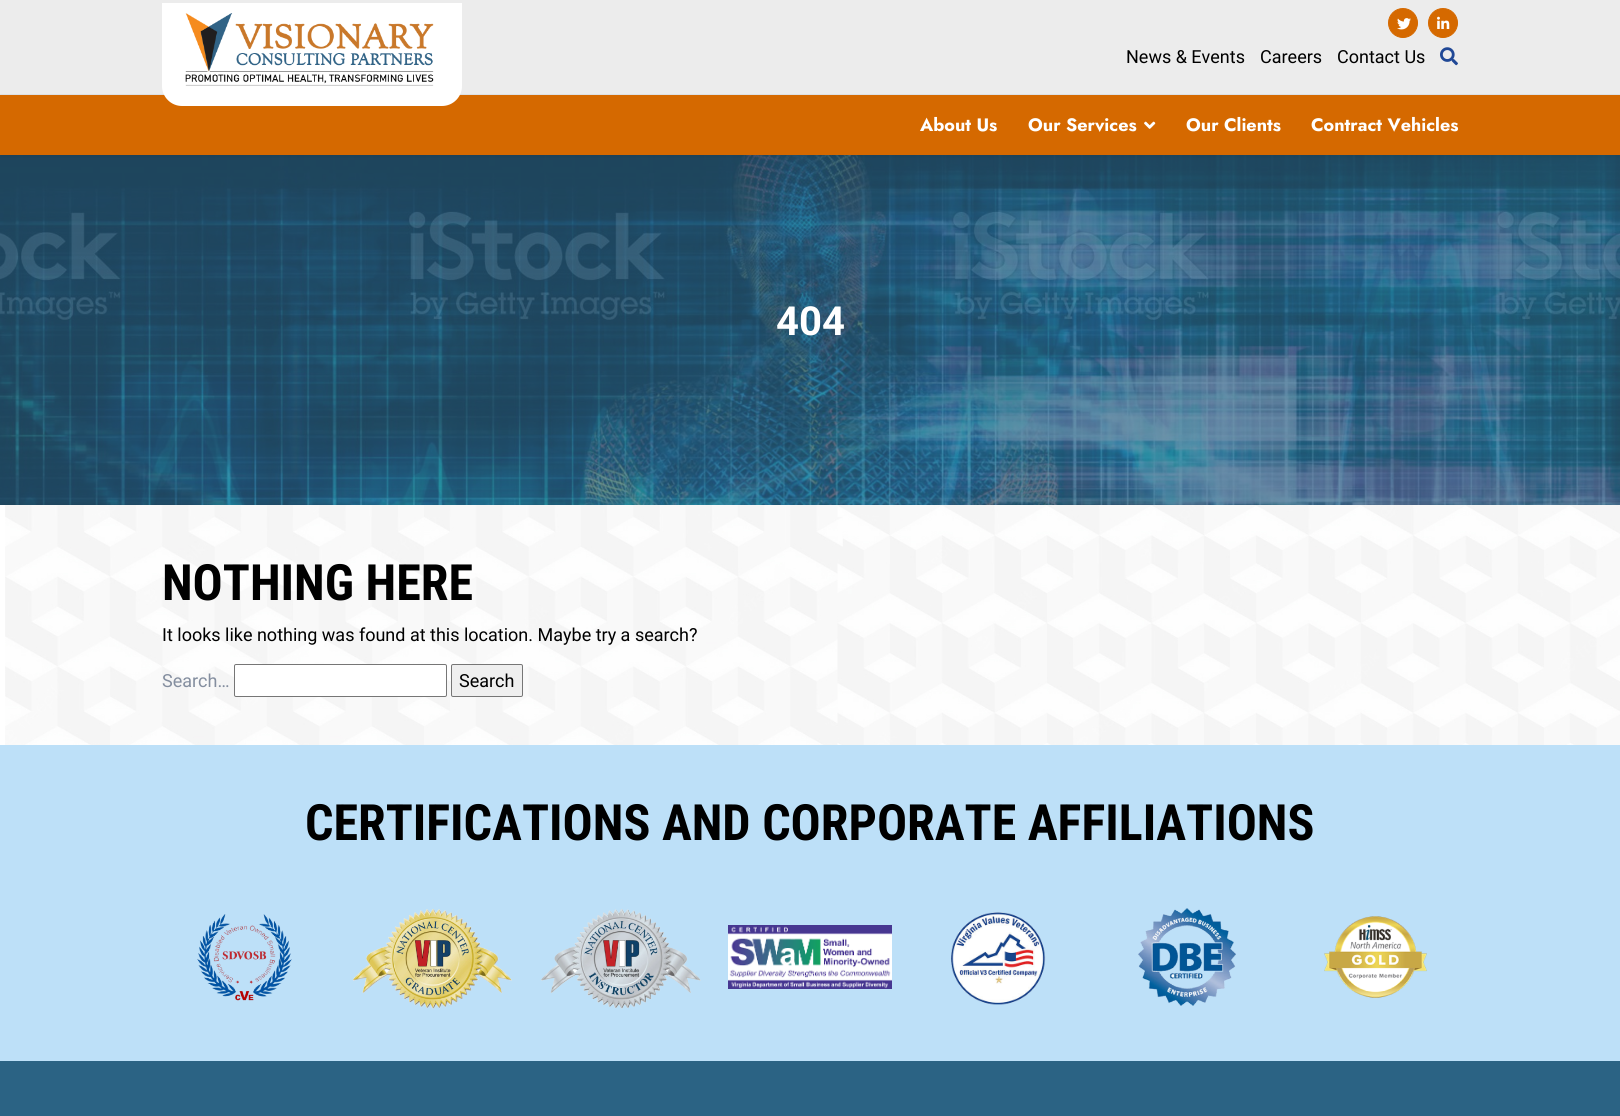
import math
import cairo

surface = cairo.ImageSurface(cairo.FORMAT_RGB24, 1620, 1116)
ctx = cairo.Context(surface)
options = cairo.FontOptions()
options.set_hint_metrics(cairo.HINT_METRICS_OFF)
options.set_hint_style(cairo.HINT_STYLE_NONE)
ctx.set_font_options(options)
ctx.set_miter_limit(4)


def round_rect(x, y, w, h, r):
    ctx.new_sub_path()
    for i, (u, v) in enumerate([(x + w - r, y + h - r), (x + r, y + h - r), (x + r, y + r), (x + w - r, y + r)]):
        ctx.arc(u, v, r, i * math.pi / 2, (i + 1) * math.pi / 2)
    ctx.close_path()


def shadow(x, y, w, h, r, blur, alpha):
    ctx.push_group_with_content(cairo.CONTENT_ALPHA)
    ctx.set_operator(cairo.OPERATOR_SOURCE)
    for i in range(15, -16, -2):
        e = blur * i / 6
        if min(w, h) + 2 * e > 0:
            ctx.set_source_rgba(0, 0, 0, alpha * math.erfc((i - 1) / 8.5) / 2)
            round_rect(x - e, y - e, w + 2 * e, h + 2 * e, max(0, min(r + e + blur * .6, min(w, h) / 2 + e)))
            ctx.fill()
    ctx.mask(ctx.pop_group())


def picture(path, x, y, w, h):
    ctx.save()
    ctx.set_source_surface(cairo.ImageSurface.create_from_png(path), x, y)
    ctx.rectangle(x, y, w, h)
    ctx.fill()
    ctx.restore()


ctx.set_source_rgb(1, 1, 1)
ctx.paint()
ctx.set_source_rgb(0.925, 0.925, 0.925)
ctx.rectangle(0, 0, 1620, 94)
ctx.fill()
ctx.set_source_rgb(0.871, 0.886, 0.902)
ctx.rectangle(0, 94, 1620, 1)
ctx.fill()
ctx.set_source_rgb(0.835, 0.412, 0)
ctx.arc(1403, 23, 14.5, 0, 2 * math.pi)
ctx.fill_preserve()
ctx.set_line_width(1)
ctx.stroke()
picture("img1.png", 1397, 18, 14, 12)
ctx.arc(1443, 23, 14.5, 0, 2 * math.pi)
ctx.fill_preserve()
ctx.stroke()
picture("img2.png", 1437, 16, 13, 13)
ctx.select_font_face("Roboto")
ctx.set_font_size(18)
ctx.set_source_rgb(0, 0, 0)
ctx.move_to(1126, 63)
ctx.show_text("News & Events")
ctx.move_to(1260, 63)
ctx.show_text("Careers")
ctx.move_to(1337, 63)
ctx.show_text("Contact Us")
picture("img3.png", 1440, 47, 18, 19)
picture("img6.png", 0, 155, 1620, 350)
ctx.set_source_rgb(0, 0, 0)
shadow(0, 97, 1620, 60, 0, 2, 0.07)
ctx.set_source_rgb(0.835, 0.412, 0)
ctx.rectangle(0, 95, 1620, 60)
ctx.fill()
ctx.set_source_rgb(1, 1, 1)
ctx.new_path()
ctx.move_to(162, 3)
ctx.line_to(462, 3)
ctx.line_to(462, 86)
ctx.curve_to(462, 97, 453, 106, 442, 106)
ctx.line_to(182, 106)
ctx.curve_to(171, 106, 162, 97, 162, 86)
ctx.close_path()
ctx.fill()
picture("img4.png", 185, 13, 249, 73)
ctx.select_font_face("Jost", cairo.FONT_SLANT_NORMAL, cairo.FONT_WEIGHT_BOLD)
ctx.move_to(920, 131)
ctx.show_text("About Us")
ctx.move_to(1028, 131)
ctx.show_text("Our Services")
picture("img5.png", 1144, 121, 12, 8)
ctx.move_to(1186, 131)
ctx.show_text("Our Clients")
ctx.move_to(1311, 131)
ctx.show_text("Contract Vehicles")
ctx.select_font_face("Roboto", cairo.FONT_SLANT_NORMAL, cairo.FONT_WEIGHT_BOLD)
ctx.set_font_size(40)
ctx.move_to(776, 335)
ctx.show_text("404")
picture("img7.png", 5, 505, 1615, 240)
ctx.select_font_face("Roboto Condensed", cairo.FONT_SLANT_NORMAL, cairo.FONT_WEIGHT_BOLD)
ctx.set_font_size(50)
ctx.set_source_rgb(0, 0, 0)
ctx.move_to(162, 600)
ctx.show_text("NOTHING HERE")
ctx.select_font_face("Roboto")
ctx.set_font_size(18)
ctx.move_to(162, 641)
ctx.show_text("It looks like nothing was found at this location. Maybe try a search?")
ctx.set_source_rgb(0.518, 0.557, 0.624)
ctx.move_to(162, 687)
ctx.show_text("Search…")
ctx.set_source_rgb(1, 1, 1)
round_rect(234.5, 664.5, 212, 32, 1.5)
ctx.fill_preserve()
ctx.set_source_rgb(0.463, 0.463, 0.463)
ctx.stroke()
ctx.set_source_rgb(0.937, 0.937, 0.937)
round_rect(451.5, 664.5, 71, 32, 1.5)
ctx.fill_preserve()
ctx.set_source_rgb(0.463, 0.463, 0.463)
ctx.stroke()
ctx.set_source_rgb(0, 0, 0)
ctx.move_to(459, 687)
ctx.show_text("Search")
ctx.set_source_rgb(0.741, 0.878, 0.969)
ctx.rectangle(0, 745, 1620, 316)
ctx.fill()
ctx.select_font_face("Roboto Condensed", cairo.FONT_SLANT_NORMAL, cairo.FONT_WEIGHT_BOLD)
ctx.set_font_size(50)
ctx.set_source_rgb(0, 0, 0)
ctx.move_to(305, 840)
ctx.show_text("CERTIFICATIONS AND CORPORATE AFFILIATIONS")
picture("img8.png", 197, 914, 95, 87)
picture("img9.png", 353, 909, 159, 100)
picture("img10.png", 541, 909, 160, 100)
picture("img11.png", 728, 925, 164, 64)
picture("img12.png", 951, 912, 95, 93)
picture("img13.png", 1138, 908, 98, 98)
picture("img14.png", 1324, 916, 103, 82)
ctx.set_source_rgb(0.169, 0.388, 0.518)
ctx.rectangle(0, 1061, 1620, 55)
ctx.fill()
surface.write_to_png("page.png")
